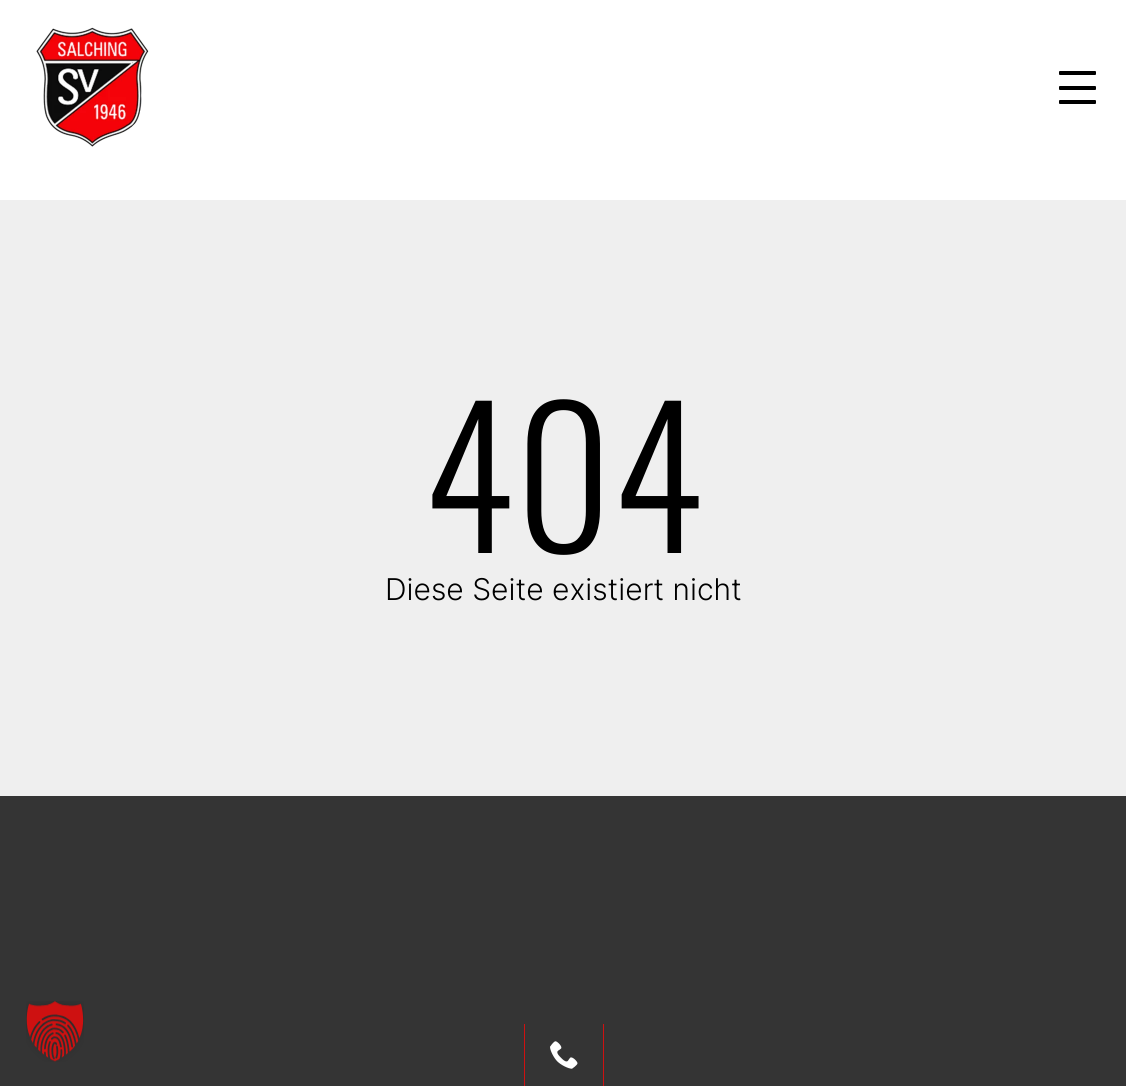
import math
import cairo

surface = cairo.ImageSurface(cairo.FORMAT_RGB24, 1126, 1086)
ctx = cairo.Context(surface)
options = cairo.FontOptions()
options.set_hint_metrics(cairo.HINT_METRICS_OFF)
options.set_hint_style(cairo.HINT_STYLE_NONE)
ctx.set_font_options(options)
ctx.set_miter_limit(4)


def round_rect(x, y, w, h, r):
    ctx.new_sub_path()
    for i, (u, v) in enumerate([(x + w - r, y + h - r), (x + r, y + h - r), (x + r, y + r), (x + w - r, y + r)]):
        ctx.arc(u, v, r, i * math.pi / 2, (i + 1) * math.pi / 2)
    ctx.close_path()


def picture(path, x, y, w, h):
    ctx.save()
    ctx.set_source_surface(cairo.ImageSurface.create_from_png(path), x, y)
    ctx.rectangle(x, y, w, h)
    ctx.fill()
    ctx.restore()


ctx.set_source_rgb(0.937, 0.937, 0.937)
ctx.paint()
ctx.set_source_rgb(1, 1, 1)
ctx.rectangle(0, 0, 1126, 200)
ctx.fill()
picture("img1.png", 36, 27, 113, 120)
ctx.set_source_rgb(0, 0, 0)
round_rect(1059, 71, 37, 4, 1)
ctx.fill()
round_rect(1059, 86, 37, 4, 1)
ctx.fill()
round_rect(1059, 100, 37, 4, 1)
ctx.fill()
ctx.select_font_face("Oswald Light")
ctx.set_font_size(188)
ctx.move_to(423, 553)
ctx.show_text("404")
ctx.select_font_face("Inter Light")
ctx.set_font_size(30)
ctx.move_to(385, 600)
ctx.show_text("Diese Seite existiert nicht")
ctx.set_source_rgb(0.204, 0.204, 0.204)
ctx.rectangle(0, 796, 1126, 290)
ctx.fill()
ctx.set_source_rgb(0.808, 0.067, 0.067)
ctx.rectangle(603, 1024, 1, 62)
ctx.fill()
ctx.rectangle(524, 1024, 1, 62)
ctx.fill()
picture("img2.png", 550, 1041, 28, 28)
picture("img3.png", 26, 1001, 58, 61)
surface.write_to_png("page.png")
